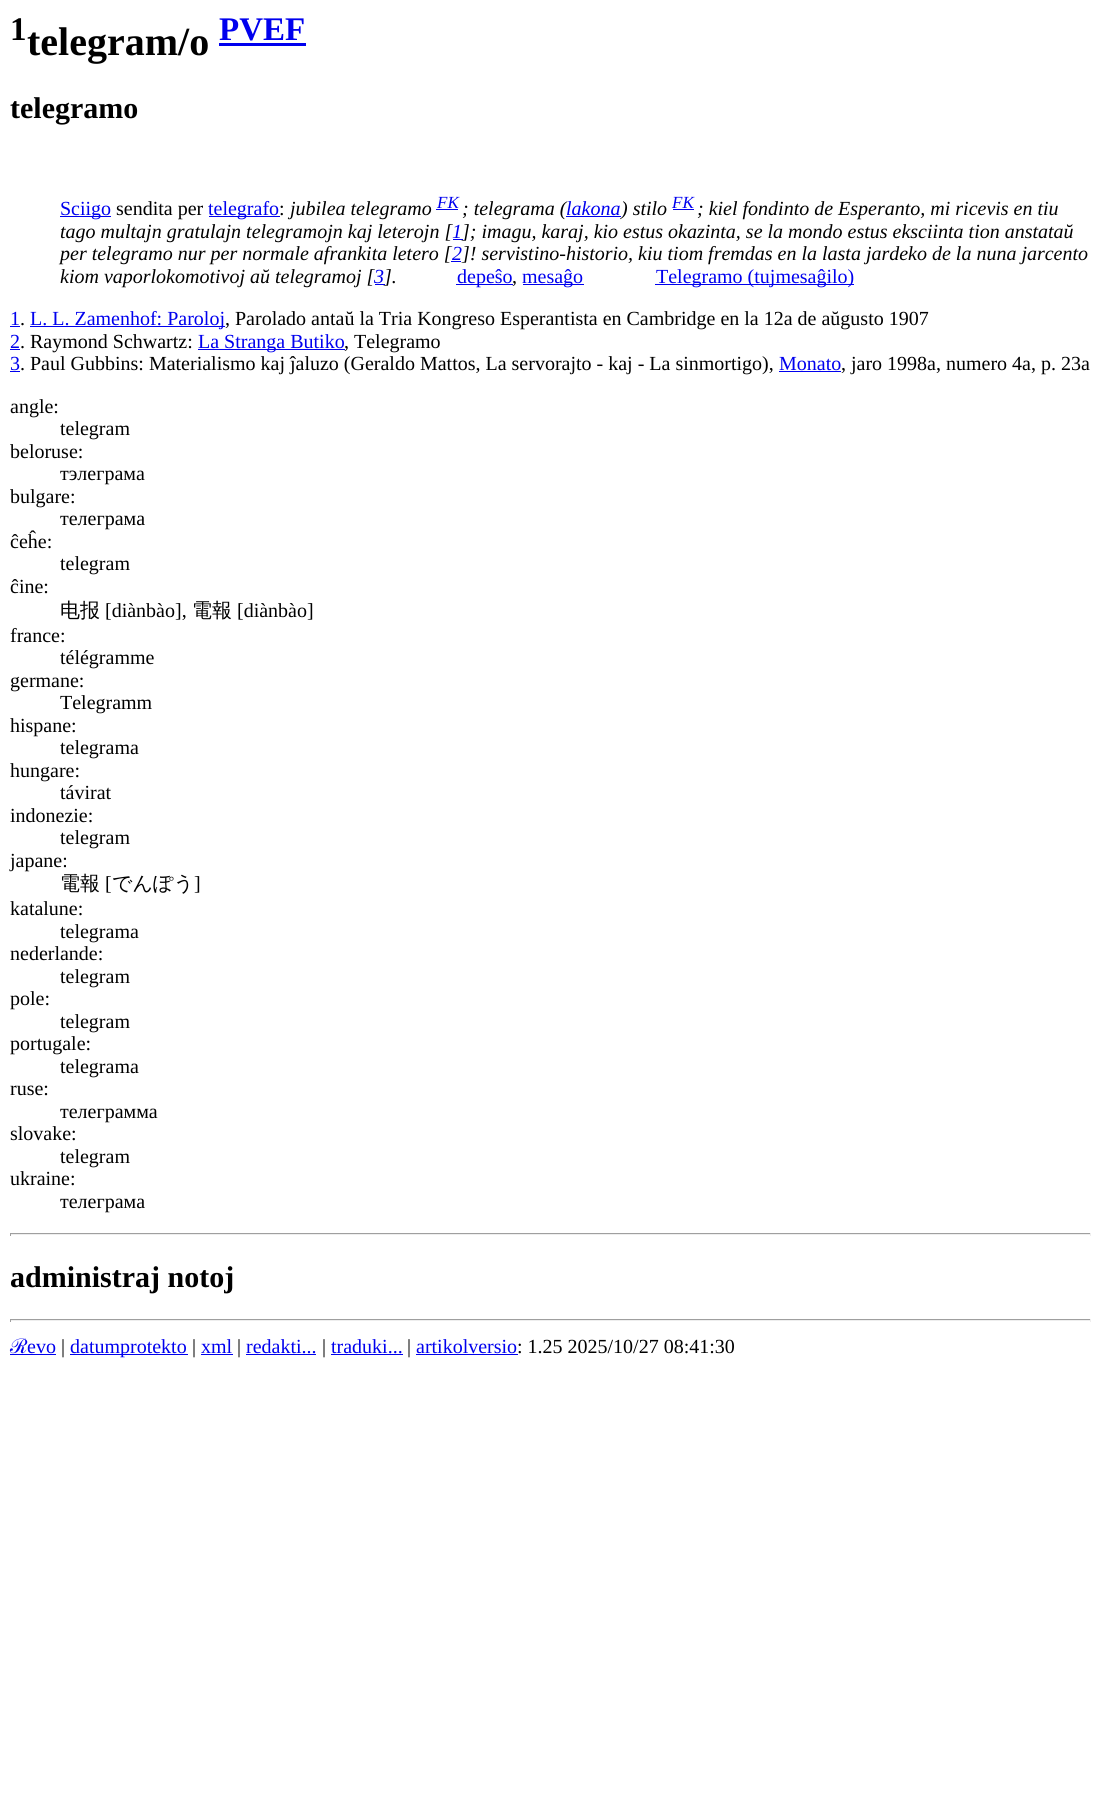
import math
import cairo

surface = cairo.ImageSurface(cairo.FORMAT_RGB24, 1101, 1805)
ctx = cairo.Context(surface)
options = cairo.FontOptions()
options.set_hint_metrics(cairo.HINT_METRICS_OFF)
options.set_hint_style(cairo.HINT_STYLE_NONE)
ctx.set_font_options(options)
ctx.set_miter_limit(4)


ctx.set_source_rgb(1, 1, 1)
ctx.paint()
ctx.select_font_face("Liberation Serif", cairo.FONT_SLANT_NORMAL, cairo.FONT_WEIGHT_BOLD)
ctx.set_font_size(33)
ctx.set_source_rgb(0, 0, 0)
ctx.move_to(10, 40)
ctx.show_text("1")
ctx.set_font_size(40)
ctx.move_to(27, 55)
ctx.show_text("telegram/o")
ctx.set_font_size(33)
ctx.set_source_rgb(0, 0, 0.933)
ctx.move_to(219, 40)
ctx.show_text("PVEF")
ctx.rectangle(219, 43, 87, 3)
ctx.fill()
ctx.set_font_size(30)
ctx.set_source_rgb(0, 0, 0)
ctx.move_to(10, 118)
ctx.show_text("telegramo")
ctx.set_source_rgb(0, 0, 0.933)
ctx.rectangle(60, 216, 51, 1)
ctx.fill()
ctx.select_font_face("Liberation Serif")
ctx.set_font_size(20)
ctx.move_to(60, 215)
ctx.show_text("Sciigo")
ctx.set_source_rgb(0, 0, 0)
ctx.move_to(116, 215)
ctx.show_text("sendita per")
ctx.set_source_rgb(0, 0, 0.933)
ctx.rectangle(209, 216, 71, 1)
ctx.fill()
ctx.move_to(208, 215)
ctx.show_text("telegrafo")
ctx.set_source_rgb(0, 0, 0)
ctx.move_to(279, 215)
ctx.show_text(":")
ctx.select_font_face("Liberation Serif", cairo.FONT_SLANT_ITALIC)
ctx.move_to(290, 215)
ctx.show_text("jubilea telegramo")
ctx.set_font_size(17)
ctx.set_source_rgb(0, 0, 0.933)
ctx.move_to(437, 208)
ctx.show_text("FK")
ctx.set_font_size(20)
ctx.set_source_rgb(0, 0, 0)
ctx.move_to(462, 215)
ctx.show_text("; telegrama (")
ctx.set_source_rgb(0, 0, 0.933)
ctx.rectangle(436, 209, 22, 1)
ctx.fill()
ctx.rectangle(566, 216, 55, 1)
ctx.fill()
ctx.move_to(566, 215)
ctx.show_text("lakona")
ctx.set_source_rgb(0, 0, 0)
ctx.move_to(621, 215)
ctx.show_text(") stilo")
ctx.set_font_size(17)
ctx.set_source_rgb(0, 0, 0.933)
ctx.move_to(672, 208)
ctx.show_text("FK")
ctx.set_font_size(20)
ctx.set_source_rgb(0, 0, 0)
ctx.move_to(697, 215)
ctx.show_text("; kiel fondinto de Esperanto, mi ricevis en tiu")
ctx.set_source_rgb(0, 0, 0.933)
ctx.rectangle(673, 209, 21, 1)
ctx.fill()
ctx.set_source_rgb(0, 0, 0)
ctx.move_to(60, 238)
ctx.show_text("tago multajn gratulajn telegramojn kaj leterojn [")
ctx.set_source_rgb(0, 0, 0.933)
ctx.rectangle(453, 239, 10, 1)
ctx.fill()
ctx.move_to(452, 238)
ctx.show_text("1")
ctx.set_source_rgb(0, 0, 0)
ctx.move_to(462, 238)
ctx.show_text("]; imagu, karaj, kio estus okazinta, se la mondo estus eksciinta tion anstataŭ")
ctx.move_to(60, 260)
ctx.show_text("per telegramo nur per normale afrankita letero [")
ctx.set_source_rgb(0, 0, 0.933)
ctx.rectangle(451, 261, 10, 1)
ctx.fill()
ctx.move_to(452, 260)
ctx.show_text("2")
ctx.set_source_rgb(0, 0, 0)
ctx.move_to(462, 260)
ctx.show_text("]! servistino-historio, kiu tiom fremdas en la lasta jardeko de la nuna jarcento")
ctx.move_to(60, 283)
ctx.show_text("kiom vaporlokomotivoj aŭ telegramoj [")
ctx.set_source_rgb(0, 0, 0.933)
ctx.rectangle(375, 284, 10, 1)
ctx.fill()
ctx.move_to(374, 283)
ctx.show_text("3")
ctx.set_source_rgb(0, 0, 0)
ctx.move_to(384, 283)
ctx.show_text("].")
ctx.set_source_rgb(0, 0, 0.933)
ctx.rectangle(456, 284, 57, 1)
ctx.fill()
ctx.select_font_face("Liberation Serif")
ctx.move_to(457, 283)
ctx.show_text("depeŝo")
ctx.set_source_rgb(0, 0, 0)
ctx.move_to(512, 283)
ctx.show_text(",")
ctx.set_source_rgb(0, 0, 0.933)
ctx.rectangle(523, 284, 61, 1)
ctx.fill()
ctx.move_to(522, 283)
ctx.show_text("mesaĝo")
ctx.rectangle(655, 284, 199, 1)
ctx.fill()
ctx.move_to(656, 283)
ctx.show_text("Telegramo (tujmesaĝilo)")
ctx.move_to(10, 325)
ctx.show_text("1")
ctx.set_source_rgb(0, 0, 0)
ctx.move_to(20, 325)
ctx.show_text(".")
ctx.set_source_rgb(0, 0, 0.933)
ctx.rectangle(10, 326, 10, 1)
ctx.fill()
ctx.rectangle(30, 326, 195, 1)
ctx.fill()
ctx.move_to(30, 325)
ctx.show_text("L. L. Zamenhof: Paroloj")
ctx.set_source_rgb(0, 0, 0)
ctx.move_to(225, 325)
ctx.show_text(", Parolado antaŭ la Tria Kongreso Esperantista en Cambridge en la 12a de aŭgusto 1907")
ctx.set_source_rgb(0, 0, 0.933)
ctx.move_to(10, 348)
ctx.show_text("2")
ctx.set_source_rgb(0, 0, 0)
ctx.move_to(20, 348)
ctx.show_text(". Raymond Schwartz:")
ctx.set_source_rgb(0, 0, 0.933)
ctx.rectangle(10, 349, 10, 1)
ctx.fill()
ctx.rectangle(198, 349, 147, 1)
ctx.fill()
ctx.move_to(198, 348)
ctx.show_text("La Stranga Butiko")
ctx.set_source_rgb(0, 0, 0)
ctx.move_to(344, 348)
ctx.show_text(", Telegramo")
ctx.set_source_rgb(0, 0, 0.933)
ctx.move_to(10, 370)
ctx.show_text("3")
ctx.set_source_rgb(0, 0, 0)
ctx.move_to(20, 370)
ctx.show_text(". Paul Gubbins: Materialismo kaj ĵaluzo (Geraldo Mattos, La servorajto - kaj - La sinmortigo),")
ctx.set_source_rgb(0, 0, 0.933)
ctx.rectangle(10, 371, 10, 1)
ctx.fill()
ctx.move_to(779, 370)
ctx.show_text("Monato")
ctx.set_source_rgb(0, 0, 0)
ctx.move_to(841, 370)
ctx.show_text(", jaro 1998a, numero 4a, p. 23a")
ctx.set_source_rgb(0, 0, 0.933)
ctx.rectangle(779, 371, 62, 1)
ctx.fill()
ctx.set_source_rgb(0, 0, 0)
ctx.move_to(10, 413)
ctx.show_text("angle:")
ctx.move_to(60, 435)
ctx.show_text("telegram")
ctx.move_to(10, 458)
ctx.show_text("beloruse:")
ctx.move_to(60, 480)
ctx.show_text("тэлеграма")
ctx.move_to(10, 503)
ctx.show_text("bulgare:")
ctx.move_to(60, 525)
ctx.show_text("телеграма")
ctx.move_to(10, 548)
ctx.show_text("ĉeĥe:")
ctx.move_to(60, 570)
ctx.show_text("telegram")
ctx.move_to(10, 593)
ctx.show_text("ĉine:")
ctx.select_font_face("WenQuanYi Zen Hei Medium")
ctx.move_to(60, 617)
ctx.show_text("电报")
ctx.select_font_face("Liberation Serif")
ctx.move_to(105, 617)
ctx.show_text("[diànbào],")
ctx.select_font_face("WenQuanYi Zen Hei Medium")
ctx.move_to(192, 617)
ctx.show_text("電報")
ctx.select_font_face("Liberation Serif")
ctx.move_to(237, 617)
ctx.show_text("[diànbào]")
ctx.move_to(10, 642)
ctx.show_text("france:")
ctx.move_to(60, 664)
ctx.show_text("télégramme")
ctx.move_to(10, 687)
ctx.show_text("germane:")
ctx.move_to(60, 709)
ctx.show_text("Telegramm")
ctx.move_to(10, 732)
ctx.show_text("hispane:")
ctx.move_to(60, 754)
ctx.show_text("telegrama")
ctx.move_to(10, 777)
ctx.show_text("hungare:")
ctx.move_to(60, 799)
ctx.show_text("távirat")
ctx.move_to(10, 822)
ctx.show_text("indonezie:")
ctx.move_to(60, 844)
ctx.show_text("telegram")
ctx.move_to(10, 867)
ctx.show_text("japane:")
ctx.select_font_face("WenQuanYi Zen Hei Medium")
ctx.move_to(60, 890)
ctx.show_text("電報")
ctx.select_font_face("Liberation Serif")
ctx.move_to(105, 890)
ctx.show_text("[")
ctx.select_font_face("WenQuanYi Zen Hei Medium")
ctx.move_to(112, 890)
ctx.show_text("でんぽう")
ctx.select_font_face("Liberation Serif")
ctx.move_to(194, 890)
ctx.show_text("]")
ctx.move_to(10, 915)
ctx.show_text("katalune:")
ctx.move_to(60, 938)
ctx.show_text("telegrama")
ctx.move_to(10, 960)
ctx.show_text("nederlande:")
ctx.move_to(60, 983)
ctx.show_text("telegram")
ctx.move_to(10, 1005)
ctx.show_text("pole:")
ctx.move_to(60, 1028)
ctx.show_text("telegram")
ctx.move_to(10, 1050)
ctx.show_text("portugale:")
ctx.move_to(60, 1073)
ctx.show_text("telegrama")
ctx.move_to(10, 1095)
ctx.show_text("ruse:")
ctx.move_to(60, 1118)
ctx.show_text("телеграмма")
ctx.move_to(10, 1140)
ctx.show_text("slovake:")
ctx.move_to(60, 1163)
ctx.show_text("telegram")
ctx.move_to(10, 1185)
ctx.show_text("ukraine:")
ctx.move_to(60, 1208)
ctx.show_text("телеграма")
ctx.set_source_rgb(0.624, 0.624, 0.624)
ctx.rectangle(10, 1233, 1081, 1)
ctx.fill()
ctx.set_source_rgb(0.933, 0.933, 0.933)
ctx.rectangle(1090, 1233, 1, 3)
ctx.fill()
ctx.rectangle(10, 1234, 1081, 1)
ctx.fill()
ctx.set_source_rgb(0.624, 0.624, 0.624)
ctx.rectangle(10, 1233, 1, 3)
ctx.fill()
ctx.select_font_face("Liberation Serif", cairo.FONT_SLANT_NORMAL, cairo.FONT_WEIGHT_BOLD)
ctx.set_font_size(30)
ctx.set_source_rgb(0, 0, 0)
ctx.move_to(10, 1287)
ctx.show_text("administraj notoj")
ctx.set_source_rgb(0.624, 0.624, 0.624)
ctx.rectangle(10, 1319, 1081, 1)
ctx.fill()
ctx.set_source_rgb(0.933, 0.933, 0.933)
ctx.rectangle(1090, 1319, 1, 3)
ctx.fill()
ctx.rectangle(10, 1320, 1081, 1)
ctx.fill()
ctx.set_source_rgb(0.624, 0.624, 0.624)
ctx.rectangle(10, 1319, 1, 3)
ctx.fill()
ctx.select_font_face("Noto Sans")
ctx.set_font_size(20)
ctx.set_source_rgb(0, 0, 0.933)
ctx.move_to(10, 1353)
ctx.show_text("ℛ")
ctx.select_font_face("Liberation Serif")
ctx.move_to(27, 1353)
ctx.show_text("evo")
ctx.rectangle(10, 1354, 46, 1)
ctx.fill()
ctx.set_source_rgb(0, 0, 0)
ctx.move_to(61, 1353)
ctx.show_text("|")
ctx.set_source_rgb(0, 0, 0.933)
ctx.rectangle(70, 1354, 118, 1)
ctx.fill()
ctx.move_to(70, 1353)
ctx.show_text("datumprotekto")
ctx.set_source_rgb(0, 0, 0)
ctx.move_to(192, 1353)
ctx.show_text("|")
ctx.set_source_rgb(0, 0, 0.933)
ctx.move_to(201, 1353)
ctx.show_text("xml")
ctx.rectangle(201, 1354, 32, 1)
ctx.fill()
ctx.set_source_rgb(0, 0, 0)
ctx.move_to(237, 1353)
ctx.show_text("|")
ctx.set_source_rgb(0, 0, 0.933)
ctx.move_to(246, 1353)
ctx.show_text("redakti...")
ctx.rectangle(246, 1354, 70, 1)
ctx.fill()
ctx.set_source_rgb(0, 0, 0)
ctx.move_to(322, 1353)
ctx.show_text("|")
ctx.set_source_rgb(0, 0, 0.933)
ctx.move_to(331, 1353)
ctx.show_text("traduki...")
ctx.rectangle(331, 1354, 72, 1)
ctx.fill()
ctx.set_source_rgb(0, 0, 0)
ctx.move_to(407, 1353)
ctx.show_text("|")
ctx.set_source_rgb(0, 0, 0.933)
ctx.move_to(416, 1353)
ctx.show_text("artikolversio")
ctx.rectangle(416, 1354, 102, 1)
ctx.fill()
ctx.set_source_rgb(0, 0, 0)
ctx.move_to(517, 1353)
ctx.show_text(": 1.25 2025/10/27 08:41:30")
surface.write_to_png("page.png")
